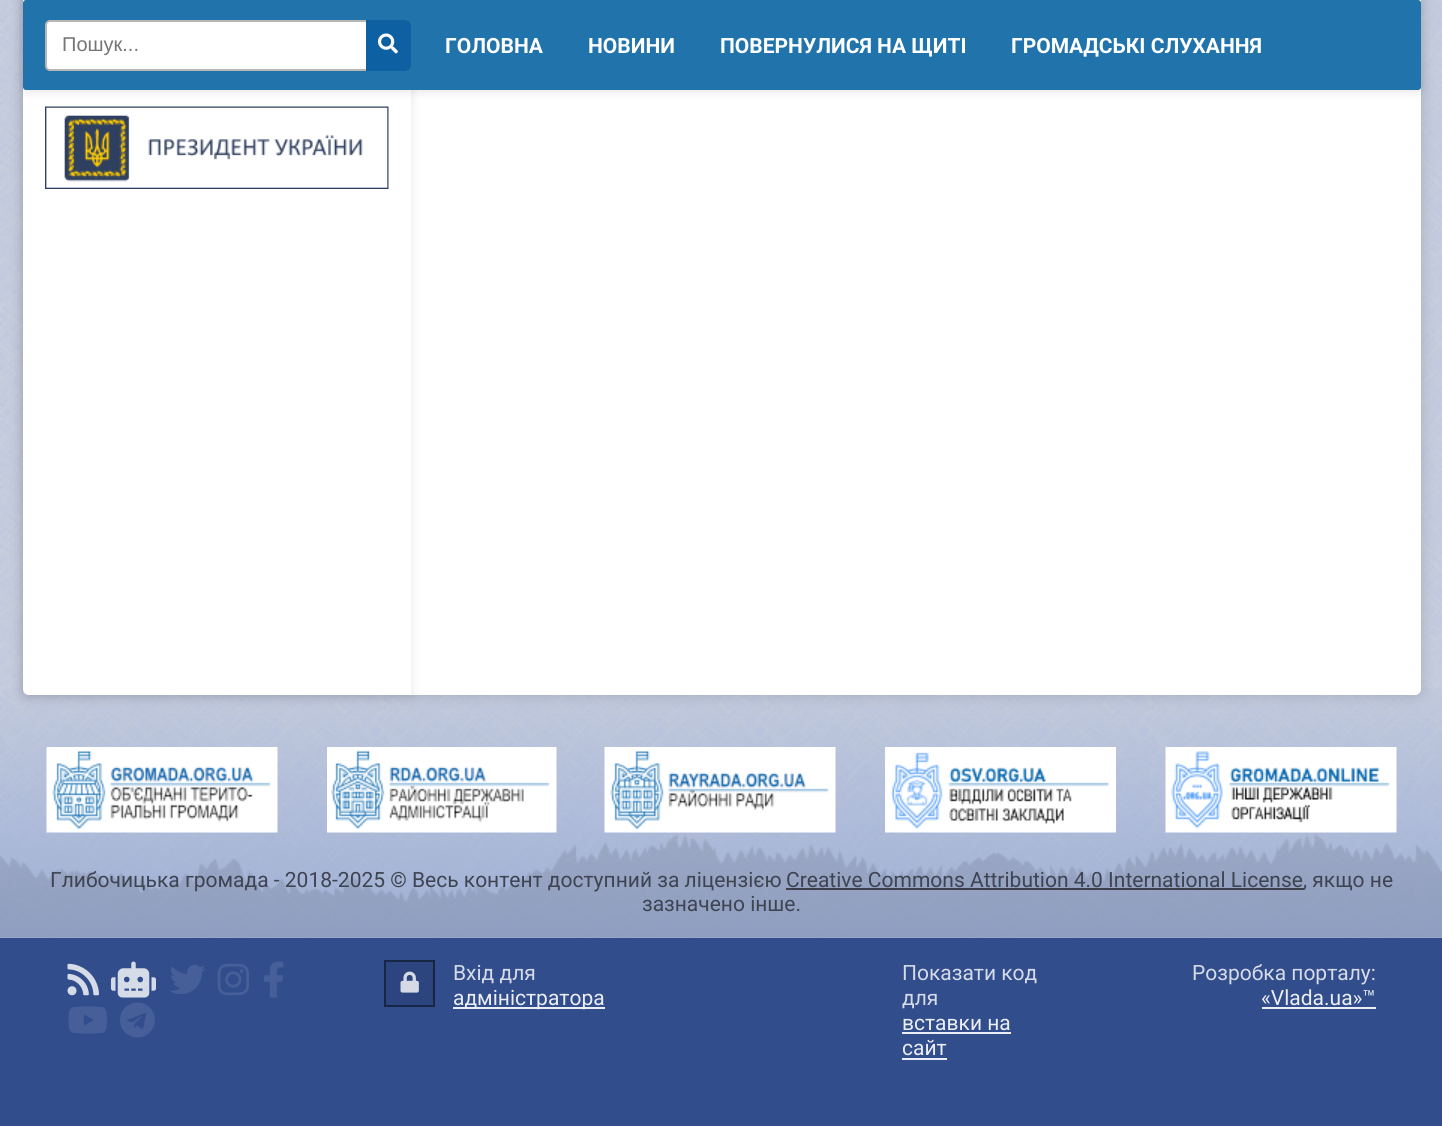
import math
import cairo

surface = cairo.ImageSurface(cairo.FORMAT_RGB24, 1442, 1126)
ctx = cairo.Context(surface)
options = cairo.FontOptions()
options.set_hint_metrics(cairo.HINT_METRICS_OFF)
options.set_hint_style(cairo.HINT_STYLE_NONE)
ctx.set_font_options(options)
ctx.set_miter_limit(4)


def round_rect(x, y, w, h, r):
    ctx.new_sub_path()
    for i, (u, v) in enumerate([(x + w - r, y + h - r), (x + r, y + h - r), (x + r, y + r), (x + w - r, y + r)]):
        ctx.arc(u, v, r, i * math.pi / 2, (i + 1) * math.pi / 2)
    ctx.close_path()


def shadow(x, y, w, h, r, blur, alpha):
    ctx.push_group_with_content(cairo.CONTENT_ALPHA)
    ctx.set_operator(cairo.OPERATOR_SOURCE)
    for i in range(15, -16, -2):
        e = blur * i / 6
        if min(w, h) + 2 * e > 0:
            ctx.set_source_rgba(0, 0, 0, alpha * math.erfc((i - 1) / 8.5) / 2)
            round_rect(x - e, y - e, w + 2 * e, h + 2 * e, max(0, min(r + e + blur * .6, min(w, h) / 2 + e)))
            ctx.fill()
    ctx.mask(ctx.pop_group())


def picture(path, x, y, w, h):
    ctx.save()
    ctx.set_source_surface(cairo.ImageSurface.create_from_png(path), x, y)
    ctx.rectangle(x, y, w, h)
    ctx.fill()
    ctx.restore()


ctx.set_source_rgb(0.706, 0.761, 0.886)
ctx.paint()
picture("img1.png", 0, 0, 1442, 938)
gradient = cairo.LinearGradient(722, 672, 722, 938)
gradient.add_color_stop_rgba(0, 0.533, 0.62, 0.82, 0)
gradient.add_color_stop_rgba(1, 0.533, 0.62, 0.82, 0.63)
ctx.set_source(gradient)
ctx.rectangle(0, 688, 1442, 250)
ctx.fill()
ctx.set_source_rgb(0, 0, 0)
shadow(23, -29, 1398, 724, 6, 7.5, 0.15)
ctx.set_source_rgb(1, 1, 1)
round_rect(23, -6, 1398, 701, 6)
ctx.fill()
ctx.save()
ctx.set_fill_rule(cairo.FILL_RULE_EVEN_ODD)
ctx.new_path()
ctx.move_to(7, 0)
ctx.line_to(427, 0)
ctx.line_to(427, 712)
ctx.line_to(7, 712)
ctx.close_path()
ctx.move_to(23, -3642)
ctx.line_to(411, -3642)
ctx.line_to(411, 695)
ctx.line_to(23, 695)
ctx.close_path()
ctx.clip()
ctx.set_source_rgb(0, 0, 0)
shadow(23, -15, 388, 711, 0, 5, 0.1)
ctx.restore()
picture("img3.png", 45, 106, 344, 83)
ctx.set_source_rgb(0, 0, 0)
shadow(23, 2, 1398, 90, 3, 5, 0.1)
ctx.set_source_rgb(0.125, 0.451, 0.671)
round_rect(23, 0, 1398, 90, 3)
ctx.fill()
ctx.set_source_rgb(1, 1, 1)
round_rect(46, 21, 364, 49, 4)
ctx.fill_preserve()
ctx.set_source_rgb(0.718, 0.718, 0.718)
ctx.stroke()
ctx.select_font_face("Liberation Sans")
ctx.set_font_size(20)
ctx.set_source_rgb(0.459, 0.459, 0.459)
ctx.move_to(62, 51)
ctx.show_text("Пошук...")
ctx.set_source_rgb(0.051, 0.38, 0.635)
ctx.new_path()
ctx.move_to(366, 20)
ctx.line_to(406, 20)
ctx.curve_to(409, 20, 411, 22, 411, 25)
ctx.line_to(411, 66)
ctx.curve_to(411, 69, 409, 71, 406, 71)
ctx.line_to(366, 71)
ctx.close_path()
ctx.fill()
picture("img2.png", 378, 33, 20, 21)
ctx.select_font_face("Roboto", cairo.FONT_SLANT_NORMAL, cairo.FONT_WEIGHT_BOLD)
ctx.set_font_size(21)
ctx.set_source_rgb(1, 1, 1)
ctx.move_to(445, 53)
ctx.show_text("ГОЛОВНА")
ctx.move_to(588, 53)
ctx.show_text("НОВИНИ")
ctx.move_to(720, 53)
ctx.show_text("ПОВЕРНУЛИСЯ НА ЩИТІ")
ctx.move_to(1011, 53)
ctx.show_text("ГРОМАДСЬКІ СЛУХАННЯ")
picture("img4.png", 0, 834, 1442, 104)
picture("img5.png", 46, 747, 232, 86)
picture("img6.png", 327, 747, 230, 86)
picture("img7.png", 604, 747, 232, 86)
picture("img8.png", 885, 747, 231, 86)
picture("img9.png", 1165, 747, 232, 86)
ctx.select_font_face("Roboto")
ctx.set_source_rgb(0.243, 0.267, 0.318)
ctx.move_to(50, 887)
ctx.show_text("Глибочицька громада - 2018-2025 © Весь контент доступний за ліцензією")
ctx.move_to(786, 887)
ctx.show_text("Creative Commons Attribution 4.0 International License")
ctx.set_source_rgba(0, 0, 0, 0.6)
ctx.rectangle(786, 888, 518, 2)
ctx.fill()
ctx.set_source_rgb(0.243, 0.267, 0.318)
ctx.move_to(1303, 887)
ctx.show_text(", якщо не")
ctx.move_to(642, 911)
ctx.show_text("зазначено інше.")
ctx.set_source_rgb(0.192, 0.302, 0.549)
ctx.rectangle(0, 938, 1442, 188)
ctx.fill()
picture("img10.png", 67, 963, 32, 33)
picture("img11.png", 111, 961, 45, 37)
picture("img12.png", 170, 965, 35, 29)
picture("img13.png", 217, 963, 32, 33)
picture("img14.png", 264, 961, 20, 37)
picture("img15.png", 68, 1006, 39, 28)
picture("img16.png", 120, 1002, 35, 36)
ctx.set_source_rgb(0.173, 0.271, 0.494)
ctx.rectangle(385, 961, 49, 45)
ctx.fill_preserve()
ctx.set_source_rgb(0.094, 0.149, 0.271)
ctx.stroke()
picture("img17.png", 400, 971, 19, 22)
ctx.set_source_rgb(0.839, 0.859, 0.91)
ctx.move_to(453, 980)
ctx.show_text("Вхід для")
ctx.set_source_rgb(0.918, 0.929, 0.957)
ctx.rectangle(453, 1007, 152, 2)
ctx.fill()
ctx.set_source_rgb(0.922, 0.933, 0.957)
ctx.move_to(453, 1005)
ctx.show_text("адміністратора")
ctx.set_source_rgb(0.839, 0.859, 0.91)
ctx.move_to(902, 980)
ctx.show_text("Показати код")
ctx.move_to(902, 1005)
ctx.show_text("для")
ctx.set_source_rgb(0.922, 0.933, 0.957)
ctx.move_to(902, 1030)
ctx.show_text("вставки на")
ctx.set_source_rgb(0.918, 0.929, 0.957)
ctx.rectangle(902, 1032, 109, 2)
ctx.fill()
ctx.set_source_rgb(0.922, 0.933, 0.957)
ctx.move_to(902, 1055)
ctx.show_text("сайт")
ctx.set_source_rgb(0.918, 0.929, 0.957)
ctx.rectangle(902, 1058, 45, 2)
ctx.fill()
ctx.set_source_rgb(0.839, 0.859, 0.91)
ctx.move_to(1192, 980)
ctx.show_text("Розробка порталу:")
ctx.set_source_rgb(0.922, 0.933, 0.957)
ctx.move_to(1261, 1005)
ctx.show_text("«Vlada.ua»™")
ctx.set_source_rgb(0.918, 0.929, 0.957)
ctx.rectangle(1262, 1007, 114, 2)
ctx.fill()
surface.write_to_png("page.png")
